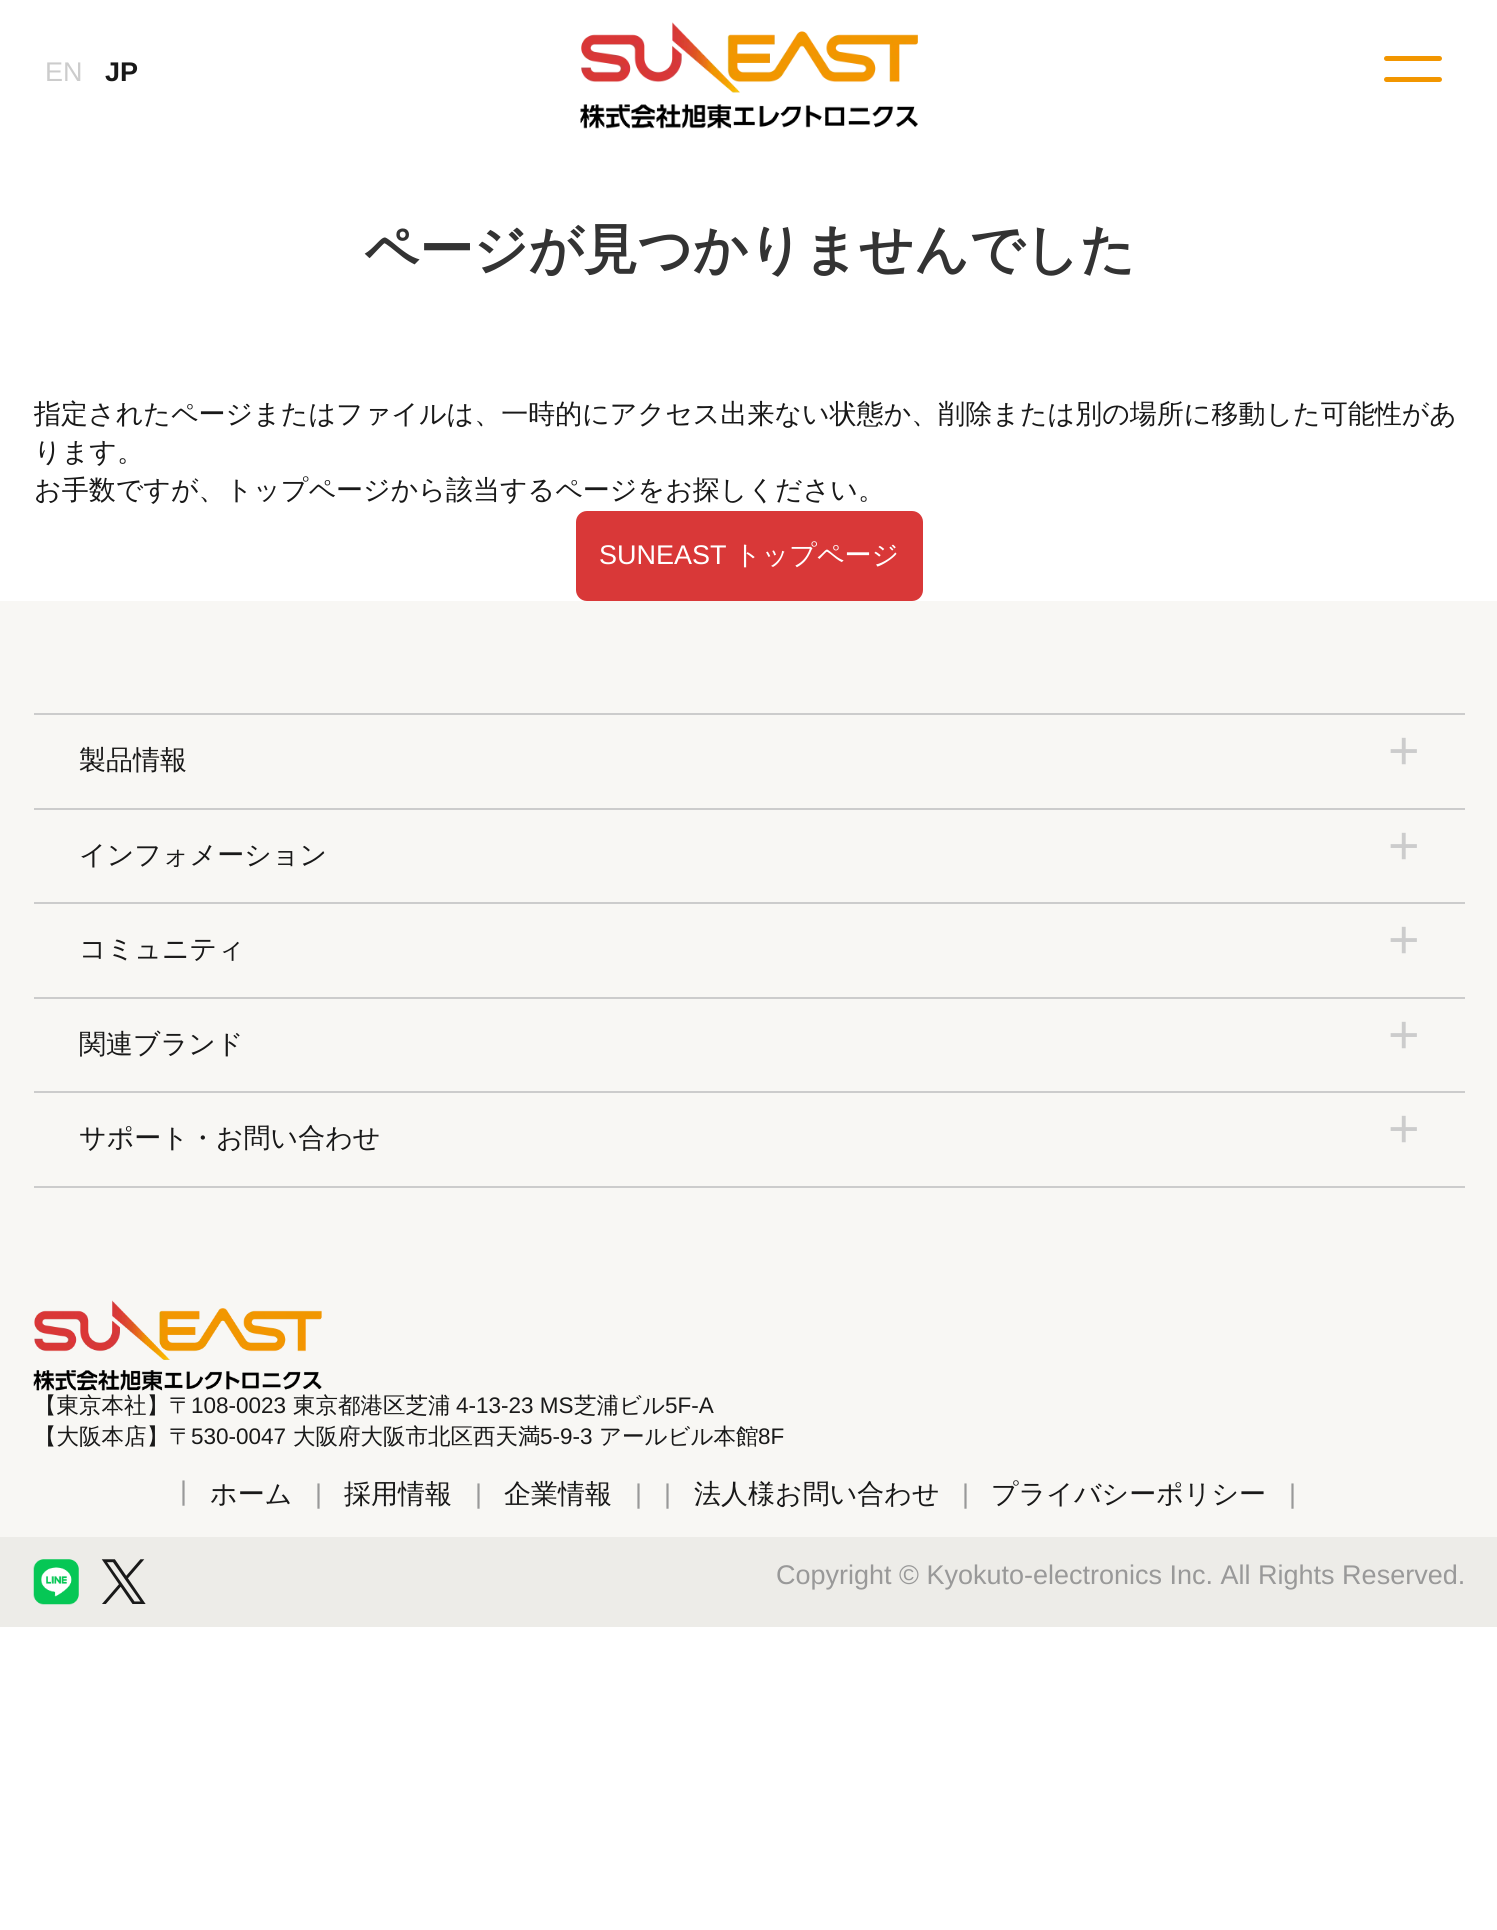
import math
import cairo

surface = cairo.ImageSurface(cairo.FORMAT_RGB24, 1497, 1930)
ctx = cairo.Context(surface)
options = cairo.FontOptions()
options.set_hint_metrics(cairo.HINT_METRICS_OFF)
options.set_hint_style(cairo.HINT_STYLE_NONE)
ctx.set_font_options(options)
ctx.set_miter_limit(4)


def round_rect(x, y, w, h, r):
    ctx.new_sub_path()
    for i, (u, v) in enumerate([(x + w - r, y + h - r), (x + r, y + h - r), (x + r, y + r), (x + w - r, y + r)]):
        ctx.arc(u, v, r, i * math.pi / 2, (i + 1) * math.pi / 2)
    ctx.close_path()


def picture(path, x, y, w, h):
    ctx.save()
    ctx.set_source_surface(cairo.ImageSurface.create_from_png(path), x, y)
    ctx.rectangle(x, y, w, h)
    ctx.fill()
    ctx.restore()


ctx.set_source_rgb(1, 1, 1)
ctx.paint()
ctx.select_font_face("Liberation Sans")
ctx.set_font_size(27)
ctx.set_source_rgb(0.8, 0.8, 0.8)
ctx.move_to(45, 81)
ctx.show_text("EN")
ctx.select_font_face("Liberation Sans", cairo.FONT_SLANT_NORMAL, cairo.FONT_WEIGHT_BOLD)
ctx.set_source_rgb(0.098, 0.098, 0.098)
ctx.move_to(105, 81)
ctx.show_text("JP")
picture("img1.png", 580, 22, 338, 107)
ctx.set_source_rgb(0.949, 0.588, 0)
round_rect(1384, 56, 58, 5, 2.5)
ctx.fill()
round_rect(1384, 77, 58, 5, 2.5)
ctx.fill()
ctx.select_font_face("WenQuanYi Zen Hei", cairo.FONT_SLANT_NORMAL, cairo.FONT_WEIGHT_BOLD)
ctx.set_font_size(54)
ctx.set_source_rgb(0.2, 0.2, 0.2)
ctx.move_to(364, 268)
ctx.show_text("ページが見つかりませんでした")
ctx.select_font_face("WenQuanYi Zen Hei Medium")
ctx.set_font_size(27)
ctx.set_source_rgb(0.098, 0.098, 0.098)
ctx.move_to(34, 423)
ctx.show_text("指定されたページまたはファイルは、一時的にアクセス出来ない状態か、削除または別の場所に移動した可能性があ")
ctx.move_to(34, 461)
ctx.show_text("ります。")
ctx.move_to(34, 499)
ctx.show_text("お手数ですが、トップページから該当するページをお探しください。")
ctx.set_source_rgb(0.851, 0.22, 0.22)
round_rect(576, 511, 347, 90, 11)
ctx.fill()
ctx.select_font_face("Liberation Sans")
ctx.set_source_rgb(1, 1, 1)
ctx.move_to(599, 564)
ctx.show_text("SUNEAST")
ctx.select_font_face("WenQuanYi Zen Hei Medium")
ctx.move_to(734, 564)
ctx.show_text("トップページ")
ctx.set_source_rgb(0.969, 0.965, 0.957)
ctx.rectangle(0, 601, 1497, 936)
ctx.fill()
ctx.set_source_rgb(0.8, 0.8, 0.8)
ctx.rectangle(34, 1186, 1431, 2)
ctx.fill()
ctx.rectangle(34, 713, 1431, 2)
ctx.fill()
ctx.set_source_rgb(0.098, 0.098, 0.098)
ctx.move_to(79, 769)
ctx.show_text("製品情報")
ctx.select_font_face("Liberation Sans")
ctx.set_font_size(54)
ctx.set_source_rgb(0.8, 0.8, 0.8)
ctx.move_to(1388, 769)
ctx.show_text("+")
ctx.rectangle(34, 808, 1431, 2)
ctx.fill()
ctx.select_font_face("WenQuanYi Zen Hei Medium")
ctx.set_font_size(27)
ctx.set_source_rgb(0.098, 0.098, 0.098)
ctx.move_to(79, 864)
ctx.show_text("インフォメーション")
ctx.select_font_face("Liberation Sans")
ctx.set_font_size(54)
ctx.set_source_rgb(0.8, 0.8, 0.8)
ctx.move_to(1388, 864)
ctx.show_text("+")
ctx.rectangle(34, 902, 1431, 2)
ctx.fill()
ctx.select_font_face("WenQuanYi Zen Hei Medium")
ctx.set_font_size(27)
ctx.set_source_rgb(0.098, 0.098, 0.098)
ctx.move_to(79, 958)
ctx.show_text("コミュニティ")
ctx.select_font_face("Liberation Sans")
ctx.set_font_size(54)
ctx.set_source_rgb(0.8, 0.8, 0.8)
ctx.move_to(1388, 958)
ctx.show_text("+")
ctx.rectangle(34, 997, 1431, 2)
ctx.fill()
ctx.select_font_face("WenQuanYi Zen Hei Medium")
ctx.set_font_size(27)
ctx.set_source_rgb(0.098, 0.098, 0.098)
ctx.move_to(79, 1053)
ctx.show_text("関連ブランド")
ctx.select_font_face("Liberation Sans")
ctx.set_font_size(54)
ctx.set_source_rgb(0.8, 0.8, 0.8)
ctx.move_to(1388, 1053)
ctx.show_text("+")
ctx.rectangle(34, 1091, 1431, 2)
ctx.fill()
ctx.select_font_face("WenQuanYi Zen Hei Medium")
ctx.set_font_size(27)
ctx.set_source_rgb(0.098, 0.098, 0.098)
ctx.move_to(79, 1147)
ctx.show_text("サポート・お問い合わせ")
ctx.select_font_face("Liberation Sans")
ctx.set_font_size(54)
ctx.set_source_rgb(0.8, 0.8, 0.8)
ctx.move_to(1388, 1147)
ctx.show_text("+")
picture("img2.png", 33, 1300, 289, 91)
ctx.select_font_face("WenQuanYi Zen Hei Medium")
ctx.set_font_size(22.5)
ctx.set_source_rgb(0.098, 0.098, 0.098)
ctx.move_to(34, 1413)
ctx.show_text("【東京本社】〒")
ctx.select_font_face("Liberation Sans")
ctx.move_to(191, 1413)
ctx.show_text("108-0023")
ctx.select_font_face("WenQuanYi Zen Hei Medium")
ctx.move_to(293, 1413)
ctx.show_text("東京都港区芝浦")
ctx.select_font_face("Liberation Sans")
ctx.move_to(456, 1413)
ctx.show_text("4-13-23 MS")
ctx.select_font_face("WenQuanYi Zen Hei Medium")
ctx.move_to(574, 1413)
ctx.show_text("芝浦ビル")
ctx.select_font_face("Liberation Sans")
ctx.move_to(665, 1413)
ctx.show_text("5F-A")
ctx.select_font_face("WenQuanYi Zen Hei Medium")
ctx.move_to(34, 1444)
ctx.show_text("【大阪本店】〒")
ctx.select_font_face("Liberation Sans")
ctx.move_to(191, 1444)
ctx.show_text("530-0047")
ctx.select_font_face("WenQuanYi Zen Hei Medium")
ctx.move_to(293, 1444)
ctx.show_text("大阪府大阪市北区西天満")
ctx.select_font_face("Liberation Sans")
ctx.move_to(540, 1444)
ctx.show_text("5-9-3")
ctx.select_font_face("WenQuanYi Zen Hei Medium")
ctx.move_to(599, 1444)
ctx.show_text("アールビル本館")
ctx.select_font_face("Liberation Sans")
ctx.move_to(758, 1444)
ctx.show_text("8F")
ctx.set_font_size(27)
ctx.set_source_rgb(0.6, 0.6, 0.6)
ctx.move_to(180, 1500)
ctx.show_text("|")
ctx.select_font_face("WenQuanYi Zen Hei Medium")
ctx.set_source_rgb(0.098, 0.098, 0.098)
ctx.move_to(210, 1503)
ctx.show_text("ホーム")
ctx.select_font_face("Liberation Sans")
ctx.set_source_rgb(0.6, 0.6, 0.6)
ctx.move_to(315, 1503)
ctx.show_text("|")
ctx.select_font_face("WenQuanYi Zen Hei Medium")
ctx.set_source_rgb(0.098, 0.098, 0.098)
ctx.move_to(344, 1503)
ctx.show_text("採用情報")
ctx.select_font_face("Liberation Sans")
ctx.set_source_rgb(0.6, 0.6, 0.6)
ctx.move_to(475, 1503)
ctx.show_text("|")
ctx.select_font_face("WenQuanYi Zen Hei Medium")
ctx.set_source_rgb(0.098, 0.098, 0.098)
ctx.move_to(504, 1503)
ctx.show_text("企業情報")
ctx.select_font_face("Liberation Sans")
ctx.set_source_rgb(0.6, 0.6, 0.6)
ctx.move_to(635, 1503)
ctx.show_text("|")
ctx.move_to(664, 1503)
ctx.show_text("|")
ctx.select_font_face("WenQuanYi Zen Hei Medium")
ctx.set_source_rgb(0.098, 0.098, 0.098)
ctx.move_to(694, 1503)
ctx.show_text("法人様お問い合わせ")
ctx.select_font_face("Liberation Sans")
ctx.set_source_rgb(0.6, 0.6, 0.6)
ctx.move_to(962, 1503)
ctx.show_text("|")
ctx.select_font_face("WenQuanYi Zen Hei Medium")
ctx.set_source_rgb(0.098, 0.098, 0.098)
ctx.move_to(991, 1503)
ctx.show_text("プライバシーポリシー")
ctx.select_font_face("Liberation Sans")
ctx.set_source_rgb(0.6, 0.6, 0.6)
ctx.move_to(1289, 1503)
ctx.show_text("|")
ctx.set_source_rgb(0.929, 0.922, 0.91)
ctx.rectangle(0, 1537, 1497, 90)
ctx.fill()
picture("img3.png", 33, 1559, 46, 46)
picture("img4.png", 101, 1559, 45, 45)
ctx.set_source_rgb(0.6, 0.6, 0.6)
ctx.move_to(776, 1584)
ctx.show_text("Copyright © Kyokuto-electronics Inc. All Rights Reserved.")
surface.write_to_png("page.png")
